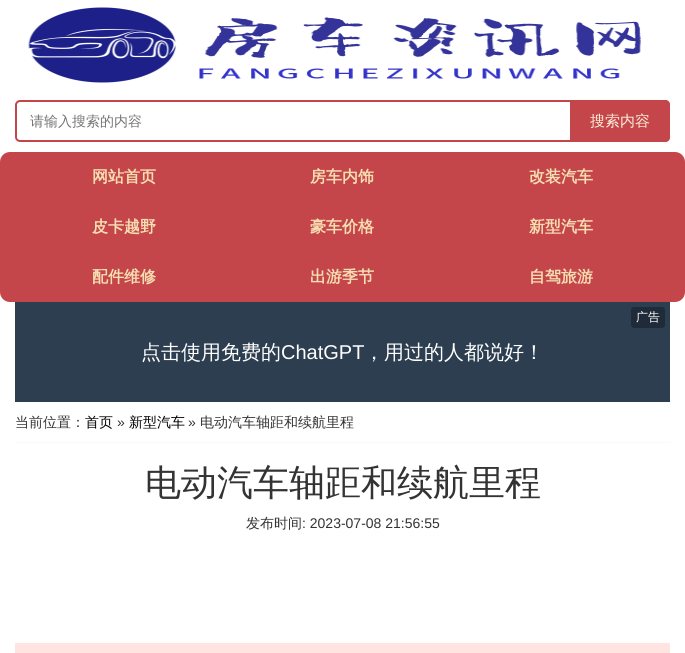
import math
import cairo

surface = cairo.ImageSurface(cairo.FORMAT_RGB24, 685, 653)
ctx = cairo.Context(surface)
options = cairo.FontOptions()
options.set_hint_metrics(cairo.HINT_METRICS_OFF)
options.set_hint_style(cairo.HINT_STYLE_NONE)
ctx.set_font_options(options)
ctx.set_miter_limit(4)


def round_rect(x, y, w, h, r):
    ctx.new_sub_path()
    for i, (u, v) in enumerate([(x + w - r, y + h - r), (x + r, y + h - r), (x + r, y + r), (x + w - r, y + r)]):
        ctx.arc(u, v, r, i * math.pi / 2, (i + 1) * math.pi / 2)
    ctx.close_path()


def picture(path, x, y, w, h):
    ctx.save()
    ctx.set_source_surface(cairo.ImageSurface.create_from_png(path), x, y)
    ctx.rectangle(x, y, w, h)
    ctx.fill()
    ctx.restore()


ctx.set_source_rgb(1, 1, 1)
ctx.paint()
picture("img1.png", 28, 7, 613, 76)
round_rect(16, 101, 653, 40, 4)
ctx.set_source_rgb(0.773, 0.275, 0.29)
ctx.stroke()
ctx.select_font_face("WenQuanYi Zen Hei Medium")
ctx.set_font_size(14)
ctx.set_source_rgb(0.459, 0.459, 0.459)
ctx.move_to(30, 126)
ctx.show_text("请输入搜索的内容")
ctx.set_source_rgb(0.773, 0.275, 0.29)
ctx.new_path()
ctx.move_to(570, 100)
ctx.line_to(665, 100)
ctx.curve_to(668, 100, 670, 102, 670, 105)
ctx.line_to(670, 137)
ctx.curve_to(670, 140, 668, 142, 665, 142)
ctx.line_to(570, 142)
ctx.close_path()
ctx.fill()
ctx.set_font_size(15)
ctx.set_source_rgb(0.976, 0.941, 0.855)
ctx.move_to(590, 126)
ctx.show_text("搜索内容")
ctx.set_source_rgb(0.773, 0.275, 0.29)
round_rect(0, 152, 685, 150, 10)
ctx.fill()
ctx.select_font_face("WenQuanYi Zen Hei", cairo.FONT_SLANT_NORMAL, cairo.FONT_WEIGHT_BOLD)
ctx.set_font_size(16)
ctx.set_source_rgb(0.961, 0.871, 0.702)
ctx.move_to(92, 182)
ctx.show_text("网站首页")
ctx.move_to(310, 182)
ctx.show_text("房车内饰")
ctx.move_to(529, 182)
ctx.show_text("改装汽车")
ctx.move_to(92, 232)
ctx.show_text("皮卡越野")
ctx.move_to(310, 232)
ctx.show_text("豪车价格")
ctx.move_to(529, 232)
ctx.show_text("新型汽车")
ctx.move_to(92, 282)
ctx.show_text("配件维修")
ctx.move_to(310, 282)
ctx.show_text("出游季节")
ctx.move_to(529, 282)
ctx.show_text("自驾旅游")
ctx.set_source_rgb(0.173, 0.243, 0.314)
ctx.rectangle(15, 302, 655, 100)
ctx.fill()
ctx.set_source_rgb(0.122, 0.169, 0.22)
round_rect(631, 307, 34, 21, 3)
ctx.fill()
ctx.select_font_face("WenQuanYi Zen Hei Medium")
ctx.set_font_size(12)
ctx.set_source_rgb(1, 1, 1)
ctx.move_to(636, 321)
ctx.show_text("广告")
ctx.set_font_size(20)
ctx.move_to(141, 359)
ctx.show_text("点击使用免费的")
ctx.select_font_face("Liberation Sans")
ctx.move_to(281, 359)
ctx.show_text("ChatGPT")
ctx.select_font_face("WenQuanYi Zen Hei Medium")
ctx.move_to(364, 359)
ctx.show_text("，用过的人都说好！")
ctx.set_source_rgb(0.973, 0.973, 1)
ctx.rectangle(15, 442, 655, 1)
ctx.fill()
ctx.set_font_size(14)
ctx.set_source_rgb(0.2, 0.2, 0.2)
ctx.move_to(15, 427)
ctx.show_text("当前位置：")
ctx.set_source_rgb(0, 0, 0)
ctx.move_to(85, 427)
ctx.show_text("首页")
ctx.select_font_face("Liberation Sans")
ctx.set_source_rgb(0.2, 0.2, 0.2)
ctx.move_to(117, 427)
ctx.show_text("»")
ctx.select_font_face("WenQuanYi Zen Hei Medium")
ctx.set_source_rgb(0, 0, 0)
ctx.move_to(129, 427)
ctx.show_text("新型汽车")
ctx.select_font_face("Liberation Sans")
ctx.set_source_rgb(0.2, 0.2, 0.2)
ctx.move_to(188, 427)
ctx.show_text("»")
ctx.select_font_face("WenQuanYi Zen Hei Medium")
ctx.move_to(200, 427)
ctx.show_text("电动汽车轴距和续航里程")
ctx.set_font_size(36)
ctx.move_to(145, 495)
ctx.show_text("电动汽车轴距和续航里程")
ctx.set_font_size(14)
ctx.move_to(246, 528)
ctx.show_text("发布时间")
ctx.select_font_face("Liberation Sans")
ctx.move_to(302, 528)
ctx.show_text(": 2023-07-08 21:56:55")
ctx.set_source_rgb(1, 0.894, 0.882)
ctx.rectangle(15, 643, 655, 10)
ctx.fill()
surface.write_to_png("page.png")
